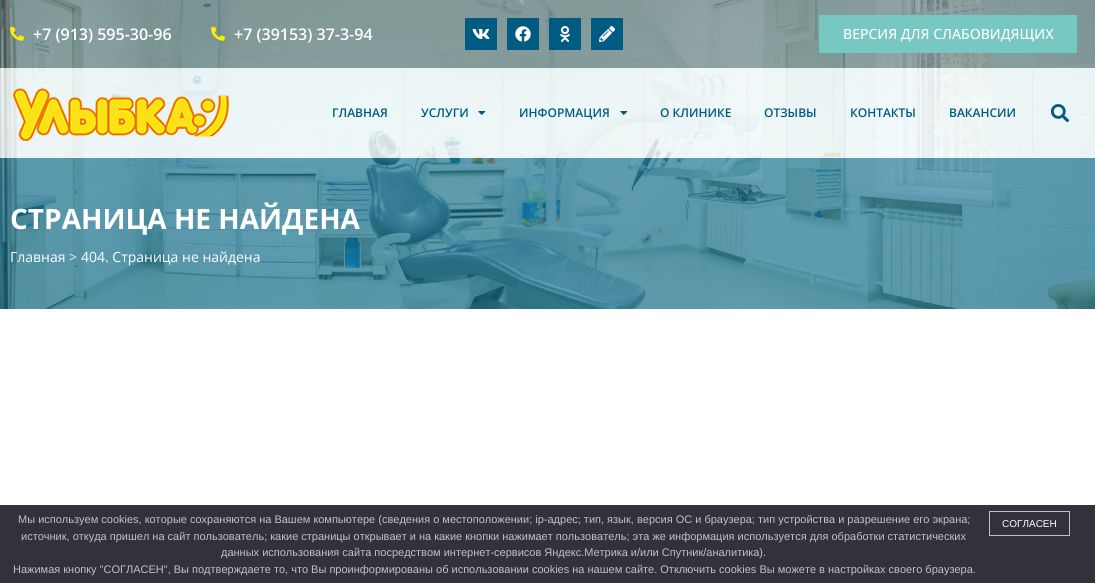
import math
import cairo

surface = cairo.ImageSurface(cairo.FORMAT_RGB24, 1095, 583)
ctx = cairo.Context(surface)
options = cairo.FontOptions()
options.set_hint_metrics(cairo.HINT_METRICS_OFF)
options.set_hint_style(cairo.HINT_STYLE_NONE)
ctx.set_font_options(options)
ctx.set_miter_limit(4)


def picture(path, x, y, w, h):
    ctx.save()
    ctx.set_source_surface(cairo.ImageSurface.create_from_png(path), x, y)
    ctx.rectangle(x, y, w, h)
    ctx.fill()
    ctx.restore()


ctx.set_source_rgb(1, 1, 1)
ctx.paint()
picture("img1.png", 0, 0, 1095, 309)
ctx.set_source_rgba(0.2, 0.2, 0.2, 0.35)
ctx.rectangle(0, 0, 1095, 68)
ctx.fill()
picture("img2.png", 10, 26, 14, 15)
ctx.select_font_face("Open Sans SemiBold")
ctx.set_font_size(16)
ctx.set_source_rgb(1, 1, 1)
ctx.move_to(33, 40)
ctx.show_text("+7 (913) 595-30-96")
picture("img3.png", 211, 26, 14, 15)
ctx.move_to(234, 40)
ctx.show_text("+7 (39153) 37-3-94")
ctx.set_source_rgb(0, 0.357, 0.51)
ctx.rectangle(465, 18, 32, 32)
ctx.fill()
picture("img4.png", 472, 29, 18, 10)
ctx.rectangle(507, 18, 32, 32)
ctx.fill()
picture("img5.png", 515, 26, 16, 16)
ctx.rectangle(549, 18, 32, 32)
ctx.fill()
picture("img6.png", 560, 26, 10, 16)
ctx.rectangle(591, 18, 32, 32)
ctx.fill()
picture("img7.png", 599, 26, 16, 16)
ctx.set_source_rgb(0.467, 0.78, 0.765)
ctx.rectangle(819, 15, 258, 38)
ctx.fill()
ctx.select_font_face("Open Sans Medium")
ctx.set_font_size(14)
ctx.set_source_rgb(1, 1, 1)
ctx.move_to(843, 39)
ctx.show_text("ВЕРСИЯ ДЛЯ СЛАБОВИДЯЩИХ")
ctx.set_source_rgba(1, 1, 1, 0.75)
ctx.rectangle(0, 68, 1095, 90)
ctx.fill()
picture("img8.png", 13, 88, 216, 53)
ctx.set_source_rgb(0.906, 0.925, 0.925)
ctx.rectangle(1032, 70, 1, 86)
ctx.fill()
ctx.select_font_face("Open Sans SemiBold")
ctx.set_font_size(12)
ctx.set_source_rgb(0, 0.357, 0.51)
ctx.move_to(332, 117)
ctx.show_text("ГЛАВНАЯ")
ctx.set_source_rgb(0.906, 0.925, 0.925)
ctx.rectangle(404, 70, 1, 86)
ctx.fill()
ctx.set_source_rgb(0, 0.357, 0.51)
ctx.move_to(421, 117)
ctx.show_text("УСЛУГИ")
picture("img9.png", 478, 111, 8, 4)
ctx.set_source_rgba(0.867, 0.867, 0.867, 0.39)
ctx.rectangle(502, 70, 1, 86)
ctx.fill()
ctx.set_source_rgb(0, 0.357, 0.51)
ctx.move_to(519, 117)
ctx.show_text("ИНФОРМАЦИЯ")
picture("img10.png", 620, 111, 8, 4)
ctx.set_source_rgba(0.867, 0.867, 0.867, 0.39)
ctx.rectangle(643, 70, 1, 86)
ctx.fill()
ctx.set_source_rgb(0, 0.357, 0.51)
ctx.move_to(660, 117)
ctx.show_text("О КЛИНИКЕ")
ctx.set_source_rgba(0.867, 0.867, 0.867, 0.39)
ctx.rectangle(747, 70, 1, 86)
ctx.fill()
ctx.set_source_rgb(0, 0.357, 0.51)
ctx.move_to(764, 117)
ctx.show_text("ОТЗЫВЫ")
ctx.set_source_rgba(0.867, 0.867, 0.867, 0.39)
ctx.rectangle(833, 70, 1, 86)
ctx.fill()
ctx.set_source_rgb(0, 0.357, 0.51)
ctx.move_to(850, 117)
ctx.show_text("КОНТАКТЫ")
ctx.set_source_rgba(0.867, 0.867, 0.867, 0.39)
ctx.rectangle(932, 70, 1, 86)
ctx.fill()
ctx.set_source_rgb(0, 0.357, 0.51)
ctx.move_to(949, 117)
ctx.show_text("ВАКАНСИИ")
picture("img11.png", 1050, 104, 19, 19)
ctx.set_source_rgba(0, 0.357, 0.51, 0.5)
ctx.rectangle(0, 158, 1095, 151)
ctx.fill()
ctx.select_font_face("Open Sans", cairo.FONT_SLANT_NORMAL, cairo.FONT_WEIGHT_BOLD)
ctx.set_font_size(28)
ctx.set_source_rgb(1, 1, 1)
ctx.move_to(10, 229)
ctx.show_text("СТРАНИЦА НЕ НАЙДЕНА")
ctx.select_font_face("Open Sans")
ctx.set_font_size(14)
ctx.move_to(10, 262)
ctx.show_text("Главная")
ctx.set_source_rgb(0.933, 0.933, 0.933)
ctx.move_to(69, 262)
ctx.show_text(">")
ctx.set_source_rgb(1, 1, 1)
ctx.move_to(81, 262)
ctx.show_text("404. Страница не найдена")
ctx.set_source_rgb(0.196, 0.196, 0.227)
ctx.rectangle(0, 505, 1095, 78)
ctx.fill()
ctx.select_font_face("Liberation Sans")
ctx.set_font_size(11)
ctx.set_source_rgb(0.761, 0.761, 0.761)
ctx.move_to(18, 523)
ctx.show_text("Мы используем cookies, которые сохраняются на Вашем компьютере (сведения о местоположении; ip-адрес; тип, язык, версия ОС и браузера; тип устройства и разрешение его экрана;")
ctx.move_to(21, 540)
ctx.show_text("источник, откуда пришел на сайт пользователь; какие страницы открывает и на какие кнопки нажимает пользователь; эта же информация используется для обработки статистических")
ctx.move_to(221, 556)
ctx.show_text("данных использования сайта посредством интернет-сервисов Яндекс.Метрика и/или Спутник/аналитика).")
ctx.move_to(13, 573)
ctx.show_text("Нажимая кнопку \"СОГЛАСЕН\", Вы подтверждаете то, что Вы проинформированы об использовании cookies на нашем сайте. Отключить cookies Вы можете в настройках своего браузера.")
ctx.rectangle(989.5, 511.5, 80, 24)
ctx.set_line_width(1)
ctx.stroke()
ctx.set_font_size(10)
ctx.set_source_rgb(1, 1, 1)
ctx.move_to(1002, 527)
ctx.show_text("СОГЛАСЕН")
surface.write_to_png("page.png")
